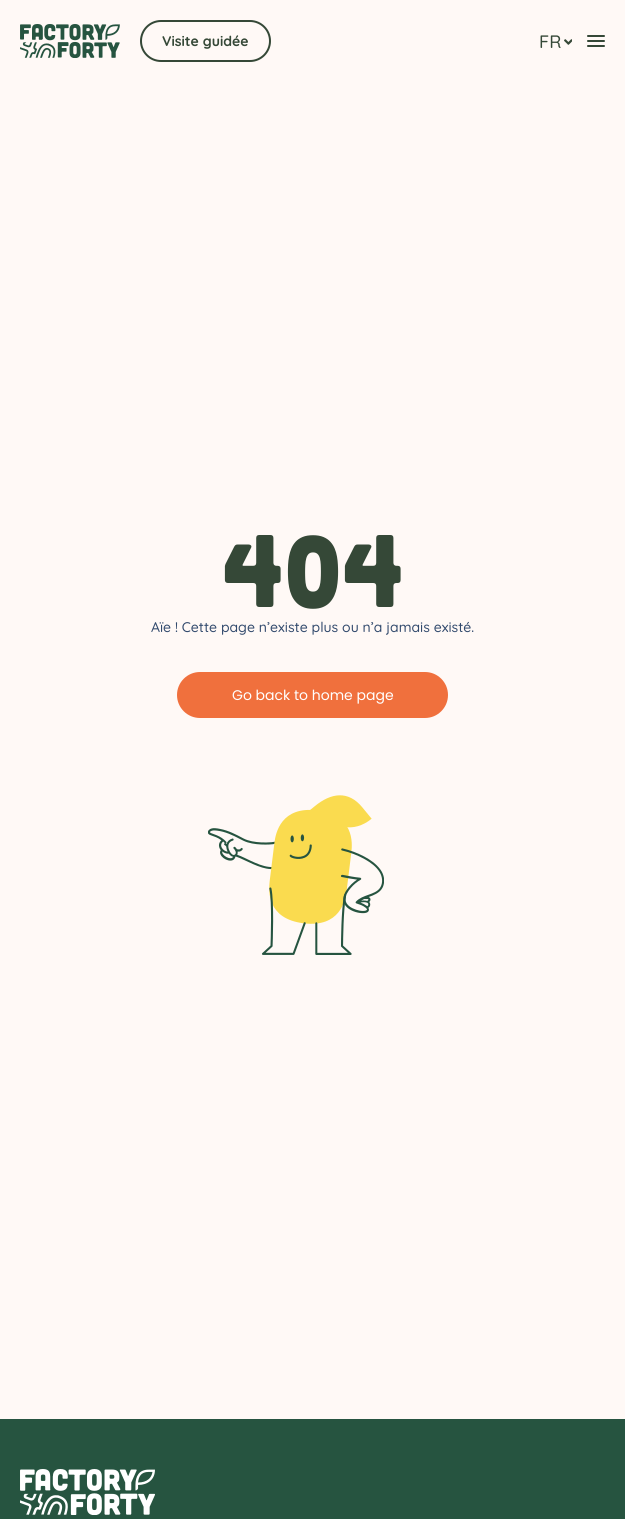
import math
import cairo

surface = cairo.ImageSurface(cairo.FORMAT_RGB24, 625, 1519)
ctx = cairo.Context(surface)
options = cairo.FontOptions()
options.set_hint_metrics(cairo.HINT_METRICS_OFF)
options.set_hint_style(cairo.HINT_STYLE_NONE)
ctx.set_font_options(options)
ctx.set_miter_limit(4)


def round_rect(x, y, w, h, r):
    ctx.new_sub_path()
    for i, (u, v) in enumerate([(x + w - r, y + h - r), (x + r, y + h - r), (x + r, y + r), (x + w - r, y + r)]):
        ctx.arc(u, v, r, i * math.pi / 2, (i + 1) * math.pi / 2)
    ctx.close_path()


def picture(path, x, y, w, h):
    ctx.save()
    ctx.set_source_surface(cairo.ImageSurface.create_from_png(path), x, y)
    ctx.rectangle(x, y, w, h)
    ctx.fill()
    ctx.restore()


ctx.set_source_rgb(1, 0.976, 0.961)
ctx.paint()
picture("img1.png", 20, 24, 100, 34)
round_rect(141, 21, 129, 40, 20)
ctx.set_source_rgb(0.208, 0.282, 0.216)
ctx.stroke()
ctx.select_font_face("Quicksand", cairo.FONT_SLANT_NORMAL, cairo.FONT_WEIGHT_BOLD)
ctx.set_font_size(14)
ctx.move_to(162, 46)
ctx.show_text("Visite guidée")
ctx.select_font_face("Quicksand Medium")
ctx.set_font_size(18)
ctx.move_to(539, 48)
ctx.show_text("FR")
picture("img2.png", 564, 39, 8, 6)
picture("img3.png", 587, 35, 18, 12)
ctx.select_font_face("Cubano")
ctx.set_font_size(100)
ctx.move_to(223, 607)
ctx.show_text("404")
ctx.select_font_face("Quicksand Medium")
ctx.set_font_size(14)
ctx.set_source_rgb(0.196, 0.29, 0.427)
ctx.move_to(151, 632)
ctx.show_text("Aïe ! Cette page n’existe plus ou n’a jamais existé.")
ctx.set_source_rgb(0.941, 0.439, 0.239)
round_rect(177, 672, 271, 46, 23)
ctx.fill()
ctx.select_font_face("Poppins")
ctx.set_source_rgb(1, 1, 1)
ctx.move_to(232, 700)
ctx.show_text("Go back to home page")
picture("img4.png", 208, 795, 176, 160)
ctx.set_source_rgb(0.149, 0.329, 0.251)
ctx.rectangle(0, 1419, 625, 100)
ctx.fill()
picture("img5.png", 20, 1469, 135, 46)
surface.write_to_png("page.png")
